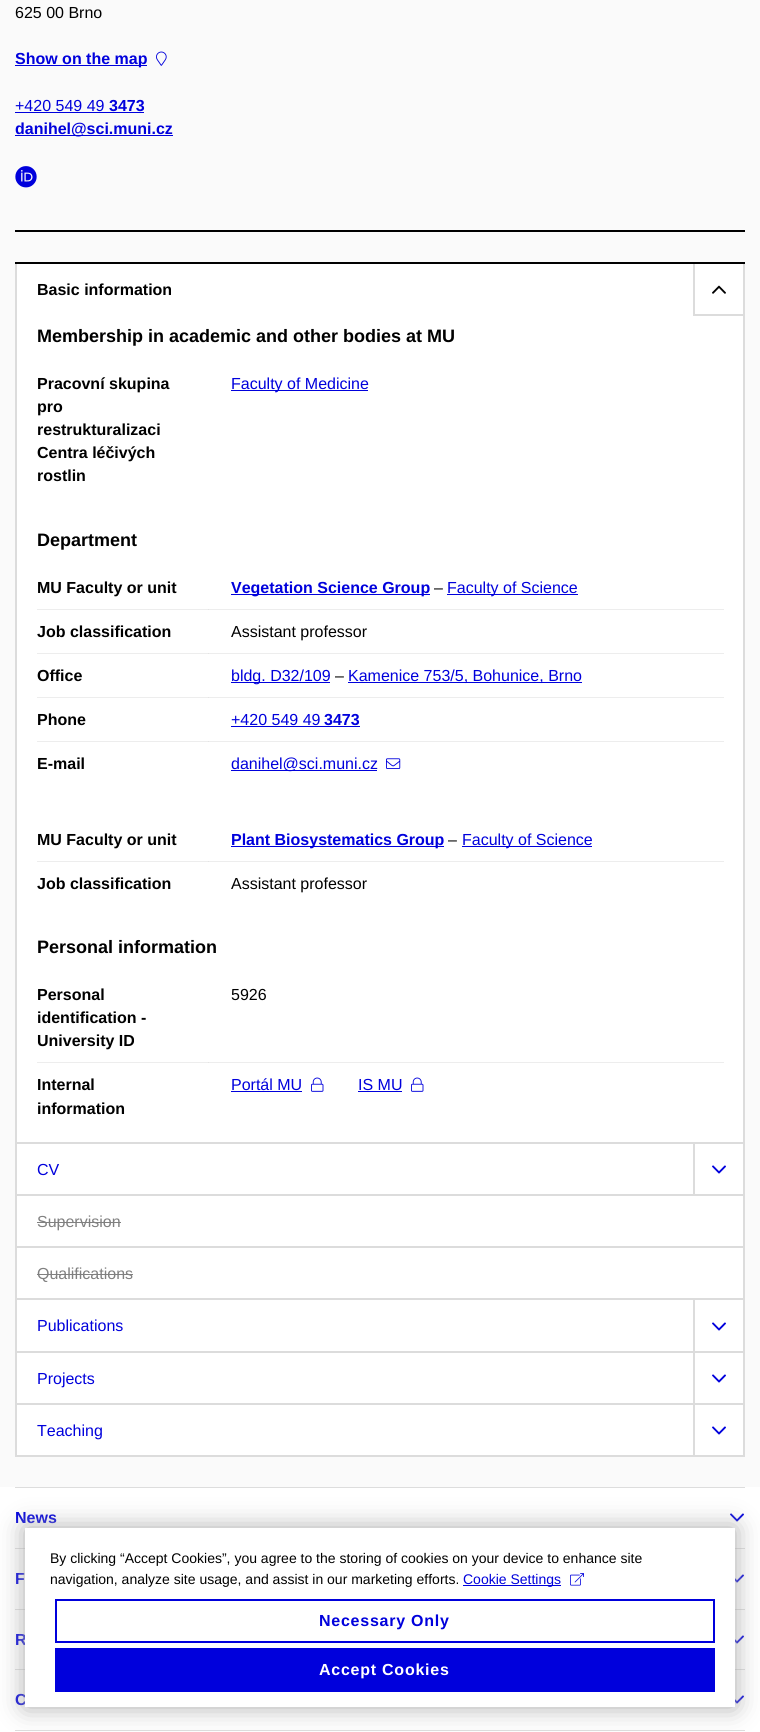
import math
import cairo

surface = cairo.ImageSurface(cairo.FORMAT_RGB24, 760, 1732)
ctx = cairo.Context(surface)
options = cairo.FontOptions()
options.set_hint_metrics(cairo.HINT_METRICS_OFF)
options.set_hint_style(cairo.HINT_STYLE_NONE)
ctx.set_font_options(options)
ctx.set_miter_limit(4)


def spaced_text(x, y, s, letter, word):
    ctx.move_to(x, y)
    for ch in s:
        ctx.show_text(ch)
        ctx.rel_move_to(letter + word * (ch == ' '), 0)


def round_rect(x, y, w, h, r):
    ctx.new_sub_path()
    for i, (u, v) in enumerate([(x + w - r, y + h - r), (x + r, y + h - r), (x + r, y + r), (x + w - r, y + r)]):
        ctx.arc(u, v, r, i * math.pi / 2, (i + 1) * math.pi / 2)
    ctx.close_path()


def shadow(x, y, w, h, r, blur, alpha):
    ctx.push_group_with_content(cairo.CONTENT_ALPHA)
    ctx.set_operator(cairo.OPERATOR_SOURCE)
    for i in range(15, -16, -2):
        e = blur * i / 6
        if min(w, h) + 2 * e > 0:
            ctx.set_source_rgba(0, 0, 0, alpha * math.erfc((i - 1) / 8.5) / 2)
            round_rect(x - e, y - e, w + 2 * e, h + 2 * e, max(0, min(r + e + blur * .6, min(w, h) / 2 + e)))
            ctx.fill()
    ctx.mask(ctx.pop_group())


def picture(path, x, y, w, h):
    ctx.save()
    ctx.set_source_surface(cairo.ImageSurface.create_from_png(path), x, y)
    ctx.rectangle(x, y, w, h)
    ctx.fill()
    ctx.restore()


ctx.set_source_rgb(0.98, 0.98, 0.98)
ctx.paint()
ctx.set_source_rgb(0, 0, 0)
ctx.rectangle(15, 230, 730, 2)
ctx.fill()
ctx.select_font_face("Liberation Sans")
ctx.set_font_size(16)
ctx.move_to(15, 18)
ctx.show_text("625 00 Brno")
ctx.set_source_rgb(0, 0, 0.863)
ctx.rectangle(15, 65, 132, 1)
ctx.fill()
ctx.select_font_face("Liberation Sans", cairo.FONT_SLANT_NORMAL, cairo.FONT_WEIGHT_BOLD)
ctx.move_to(15, 64)
ctx.show_text("Show on the map")
picture("img1.png", 156, 51, 11, 15)
ctx.select_font_face("Liberation Sans")
ctx.move_to(15, 111)
ctx.show_text("+420 549 49")
ctx.rectangle(15, 112, 129, 1)
ctx.fill()
ctx.select_font_face("Liberation Sans", cairo.FONT_SLANT_NORMAL, cairo.FONT_WEIGHT_BOLD)
ctx.move_to(109, 111)
ctx.show_text("3473")
ctx.rectangle(15, 135, 158, 1)
ctx.fill()
ctx.move_to(15, 134)
ctx.show_text("danihel@sci.muni.cz")
picture("img2.png", 15, 166, 22, 22)
ctx.set_source_rgb(0.863, 0.863, 0.863)
ctx.rectangle(743, 262, 2, 1195)
ctx.fill()
ctx.rectangle(15, 1455, 730, 2)
ctx.fill()
ctx.rectangle(15, 262, 2, 1195)
ctx.fill()
ctx.set_source_rgb(1, 1, 1)
ctx.rectangle(17, 264, 726, 878)
ctx.fill()
ctx.set_source_rgb(0.929, 0.929, 0.929)
ctx.rectangle(37, 1062, 687, 1)
ctx.fill()
ctx.rectangle(37, 861, 687, 1)
ctx.fill()
ctx.rectangle(37, 609, 687, 1)
ctx.fill()
ctx.rectangle(37, 653, 687, 1)
ctx.fill()
ctx.rectangle(37, 697, 687, 1)
ctx.fill()
ctx.rectangle(37, 741, 687, 1)
ctx.fill()
ctx.set_source_rgb(0, 0, 0)
ctx.rectangle(15, 262, 730, 2)
ctx.fill()
ctx.move_to(37, 295)
ctx.show_text("Basic information")
ctx.set_source_rgb(0.863, 0.863, 0.863)
ctx.rectangle(693, 314, 50, 2)
ctx.fill()
ctx.rectangle(693, 264, 2, 52)
ctx.fill()
picture("img3.png", 712, 285, 14, 9)
ctx.set_font_size(18)
ctx.set_source_rgb(0, 0, 0)
ctx.move_to(37, 342)
ctx.show_text("Membership in academic and other bodies at MU")
ctx.set_font_size(16)
ctx.move_to(37, 389)
ctx.show_text("Pracovní skupina")
ctx.move_to(37, 412)
ctx.show_text("pro")
ctx.move_to(37, 435)
ctx.show_text("restrukturalizaci")
ctx.move_to(37, 458)
ctx.show_text("Centra léčivých")
ctx.move_to(37, 481)
ctx.show_text("rostlin")
ctx.set_source_rgb(0, 0, 0.863)
ctx.rectangle(231, 390, 137, 1)
ctx.fill()
ctx.select_font_face("Liberation Sans")
ctx.move_to(231, 389)
ctx.show_text("Faculty of Medicine")
ctx.select_font_face("Liberation Sans", cairo.FONT_SLANT_NORMAL, cairo.FONT_WEIGHT_BOLD)
ctx.set_font_size(18)
ctx.set_source_rgb(0, 0, 0)
ctx.move_to(37, 546)
ctx.show_text("Department")
ctx.set_font_size(16)
ctx.move_to(37, 593)
ctx.show_text("MU Faculty or unit")
ctx.set_source_rgb(0.894, 0.894, 0.894)
ctx.rectangle(208, 609, 1, 1)
ctx.fill()
ctx.set_source_rgb(0, 0, 0.863)
ctx.rectangle(231, 594, 199, 1)
ctx.fill()
ctx.move_to(231, 593)
ctx.show_text("Vegetation Science Group")
ctx.select_font_face("Liberation Sans")
ctx.set_source_rgb(0, 0, 0)
ctx.move_to(434, 593)
ctx.show_text("–")
ctx.set_source_rgb(0, 0, 0.863)
ctx.rectangle(447, 594, 131, 1)
ctx.fill()
ctx.move_to(447, 593)
ctx.show_text("Faculty of Science")
ctx.select_font_face("Liberation Sans", cairo.FONT_SLANT_NORMAL, cairo.FONT_WEIGHT_BOLD)
ctx.set_source_rgb(0, 0, 0)
ctx.move_to(37, 637)
ctx.show_text("Job classification")
ctx.set_source_rgb(0.894, 0.894, 0.894)
ctx.rectangle(208, 653, 1, 1)
ctx.fill()
ctx.select_font_face("Liberation Sans")
ctx.set_source_rgb(0, 0, 0)
ctx.move_to(231, 637)
ctx.show_text("Assistant professor")
ctx.select_font_face("Liberation Sans", cairo.FONT_SLANT_NORMAL, cairo.FONT_WEIGHT_BOLD)
ctx.move_to(37, 681)
ctx.show_text("Office")
ctx.set_source_rgb(0.894, 0.894, 0.894)
ctx.rectangle(208, 697, 1, 1)
ctx.fill()
ctx.set_source_rgb(0, 0, 0.863)
ctx.rectangle(231, 682, 99, 1)
ctx.fill()
ctx.select_font_face("Liberation Sans")
ctx.move_to(231, 681)
ctx.show_text("bldg. D32/109")
ctx.set_source_rgb(0, 0, 0)
ctx.move_to(335, 681)
ctx.show_text("–")
ctx.set_source_rgb(0, 0, 0.863)
ctx.rectangle(348, 682, 234, 1)
ctx.fill()
ctx.move_to(348, 681)
ctx.show_text("Kamenice 753/5, Bohunice, Brno")
ctx.select_font_face("Liberation Sans", cairo.FONT_SLANT_NORMAL, cairo.FONT_WEIGHT_BOLD)
ctx.set_source_rgb(0, 0, 0)
ctx.move_to(37, 725)
ctx.show_text("Phone")
ctx.set_source_rgb(0.894, 0.894, 0.894)
ctx.rectangle(208, 741, 1, 1)
ctx.fill()
ctx.select_font_face("Liberation Sans")
ctx.set_source_rgb(0, 0, 0.863)
ctx.move_to(231, 725)
ctx.show_text("+420 549 49")
ctx.rectangle(231, 726, 129, 1)
ctx.fill()
ctx.select_font_face("Liberation Sans", cairo.FONT_SLANT_NORMAL, cairo.FONT_WEIGHT_BOLD)
ctx.move_to(324, 725)
ctx.show_text("3473")
ctx.set_source_rgb(0, 0, 0)
ctx.move_to(37, 769)
ctx.show_text("E-mail")
ctx.set_source_rgb(0, 0, 0.863)
ctx.rectangle(231, 770, 146, 1)
ctx.fill()
ctx.select_font_face("Liberation Sans")
ctx.move_to(231, 769)
ctx.show_text("danihel@sci.muni.cz")
picture("img4.png", 386, 758, 15, 11)
ctx.select_font_face("Liberation Sans", cairo.FONT_SLANT_NORMAL, cairo.FONT_WEIGHT_BOLD)
ctx.set_source_rgb(0, 0, 0)
ctx.move_to(37, 845)
ctx.show_text("MU Faculty or unit")
ctx.set_source_rgb(0.894, 0.894, 0.894)
ctx.rectangle(208, 861, 1, 1)
ctx.fill()
ctx.set_source_rgb(0, 0, 0.863)
ctx.rectangle(231, 846, 213, 1)
ctx.fill()
ctx.move_to(231, 845)
ctx.show_text("Plant Biosystematics Group")
ctx.select_font_face("Liberation Sans")
ctx.set_source_rgb(0, 0, 0)
ctx.move_to(448, 845)
ctx.show_text("–")
ctx.set_source_rgb(0, 0, 0.863)
ctx.rectangle(462, 846, 130, 1)
ctx.fill()
ctx.move_to(462, 845)
ctx.show_text("Faculty of Science")
ctx.select_font_face("Liberation Sans", cairo.FONT_SLANT_NORMAL, cairo.FONT_WEIGHT_BOLD)
ctx.set_source_rgb(0, 0, 0)
ctx.move_to(37, 889)
ctx.show_text("Job classification")
ctx.select_font_face("Liberation Sans")
ctx.move_to(231, 889)
ctx.show_text("Assistant professor")
ctx.select_font_face("Liberation Sans", cairo.FONT_SLANT_NORMAL, cairo.FONT_WEIGHT_BOLD)
ctx.set_font_size(18)
ctx.move_to(37, 953)
ctx.show_text("Personal information")
ctx.set_font_size(16)
ctx.move_to(37, 1000)
ctx.show_text("Personal")
ctx.move_to(37, 1023)
ctx.show_text("identification -")
ctx.move_to(37, 1046)
ctx.show_text("University ID")
ctx.set_source_rgb(0.894, 0.894, 0.894)
ctx.rectangle(208, 1062, 1, 1)
ctx.fill()
ctx.select_font_face("Liberation Sans")
ctx.set_source_rgb(0, 0, 0)
ctx.move_to(231, 1000)
ctx.show_text("5926")
ctx.select_font_face("Liberation Sans", cairo.FONT_SLANT_NORMAL, cairo.FONT_WEIGHT_BOLD)
ctx.move_to(37, 1090)
ctx.show_text("Internal")
ctx.move_to(37, 1114)
ctx.show_text("information")
ctx.select_font_face("Liberation Sans")
ctx.set_source_rgb(0, 0, 0.863)
ctx.move_to(231, 1090)
ctx.show_text("Portál MU")
ctx.rectangle(231, 1091, 71, 1)
ctx.fill()
picture("img5.png", 311, 1077, 13, 15)
ctx.move_to(358, 1090)
ctx.show_text("IS MU")
ctx.rectangle(358, 1091, 44, 1)
ctx.fill()
picture("img5.png", 411, 1077, 13, 15)
ctx.set_source_rgb(1, 1, 1)
ctx.rectangle(17, 1144, 726, 50)
ctx.fill()
ctx.set_source_rgb(0.863, 0.863, 0.863)
ctx.rectangle(17, 1142, 726, 2)
ctx.fill()
ctx.set_source_rgb(0, 0, 0.863)
ctx.move_to(37, 1175)
ctx.show_text("CV")
ctx.set_source_rgb(0.863, 0.863, 0.863)
ctx.rectangle(693, 1144, 2, 52)
ctx.fill()
picture("img6.png", 712, 1165, 14, 9)
ctx.set_source_rgb(1, 1, 1)
ctx.rectangle(17, 1196, 726, 50)
ctx.fill()
ctx.set_source_rgb(0.863, 0.863, 0.863)
ctx.rectangle(17, 1194, 726, 2)
ctx.fill()
ctx.set_source_rgb(0.502, 0.502, 0.502)
ctx.move_to(37, 1227)
ctx.show_text("Supervision")
ctx.rectangle(37, 1222, 84, 1)
ctx.fill()
ctx.set_source_rgb(1, 1, 1)
ctx.rectangle(17, 1248, 726, 50)
ctx.fill()
ctx.set_source_rgb(0.863, 0.863, 0.863)
ctx.rectangle(17, 1246, 726, 2)
ctx.fill()
ctx.set_source_rgb(0.502, 0.502, 0.502)
ctx.move_to(37, 1279)
ctx.show_text("Qualifications")
ctx.rectangle(37, 1274, 96, 1)
ctx.fill()
ctx.set_source_rgb(1, 1, 1)
ctx.rectangle(17, 1300, 726, 51)
ctx.fill()
ctx.set_source_rgb(0.863, 0.863, 0.863)
ctx.rectangle(17, 1298, 726, 2)
ctx.fill()
ctx.set_source_rgb(0, 0, 0.863)
ctx.move_to(37, 1331)
ctx.show_text("Publications")
ctx.set_source_rgb(0.863, 0.863, 0.863)
ctx.rectangle(693, 1300, 2, 53)
ctx.fill()
picture("img6.png", 712, 1322, 14, 9)
ctx.set_source_rgb(1, 1, 1)
ctx.rectangle(17, 1353, 726, 50)
ctx.fill()
ctx.set_source_rgb(0.863, 0.863, 0.863)
ctx.rectangle(17, 1351, 726, 2)
ctx.fill()
ctx.set_source_rgb(0, 0, 0.863)
ctx.move_to(37, 1384)
ctx.show_text("Projects")
ctx.set_source_rgb(0.863, 0.863, 0.863)
ctx.rectangle(693, 1353, 2, 52)
ctx.fill()
picture("img6.png", 712, 1374, 14, 9)
ctx.set_source_rgb(1, 1, 1)
ctx.rectangle(17, 1405, 726, 50)
ctx.fill()
ctx.set_source_rgb(0.863, 0.863, 0.863)
ctx.rectangle(17, 1403, 726, 2)
ctx.fill()
ctx.set_source_rgb(0, 0, 0.863)
ctx.move_to(37, 1436)
ctx.show_text("Teaching")
ctx.set_source_rgb(0.863, 0.863, 0.863)
ctx.rectangle(693, 1405, 2, 52)
ctx.fill()
picture("img6.png", 712, 1426, 14, 9)
ctx.set_source_rgb(1, 1, 1)
ctx.rectangle(0, 1487, 760, 245)
ctx.fill()
ctx.set_source_rgb(0.867, 0.867, 0.867)
ctx.rectangle(15, 1487, 730, 1)
ctx.fill()
ctx.select_font_face("Liberation Sans", cairo.FONT_SLANT_NORMAL, cairo.FONT_WEIGHT_BOLD)
ctx.set_source_rgb(0, 0, 0.863)
ctx.move_to(15, 1523)
ctx.show_text("News")
picture("img6.png", 730, 1513, 14, 9)
ctx.set_source_rgb(0.867, 0.867, 0.867)
ctx.rectangle(15, 1548, 730, 1)
ctx.fill()
ctx.set_source_rgb(0, 0, 0.863)
ctx.move_to(15, 1584)
ctx.show_text("F")
picture("img7.png", 735, 1574, 9, 9)
ctx.set_source_rgb(0.867, 0.867, 0.867)
ctx.rectangle(15, 1609, 730, 1)
ctx.fill()
ctx.set_source_rgb(0, 0, 0.863)
ctx.move_to(15, 1645)
ctx.show_text("R")
picture("img7.png", 735, 1635, 9, 9)
ctx.set_source_rgb(0.867, 0.867, 0.867)
ctx.rectangle(15, 1669, 730, 1)
ctx.fill()
ctx.set_source_rgb(0, 0, 0.863)
ctx.move_to(15, 1705)
ctx.show_text("C")
picture("img7.png", 735, 1695, 9, 9)
ctx.set_source_rgb(0.867, 0.867, 0.867)
ctx.rectangle(15, 1730, 730, 1)
ctx.fill()
ctx.set_source_rgb(0.667, 0.667, 0.667)
shadow(25, 1528, 710, 179, 0, 12.5, 1)
ctx.set_source_rgb(1, 1, 1)
ctx.rectangle(25, 1528, 710, 179)
ctx.fill()
ctx.select_font_face("Liberation Sans")
ctx.set_font_size(14)
ctx.set_source_rgb(0, 0, 0)
ctx.move_to(50, 1563)
ctx.show_text("By clicking “Accept Cookies”, you agree to the storing of cookies on your device to enhance site")
ctx.move_to(50, 1584)
ctx.show_text("navigation, analyze site usage, and assist in our marketing efforts.")
ctx.set_source_rgb(0, 0, 0.863)
ctx.rectangle(463, 1585, 98, 1)
ctx.fill()
ctx.move_to(463, 1584)
ctx.show_text("Cookie Settings")
picture("img8.png", 570, 1573, 14, 13)
ctx.rectangle(56, 1600, 658, 42)
ctx.stroke()
ctx.select_font_face("Liberation Sans", cairo.FONT_SLANT_NORMAL, cairo.FONT_WEIGHT_BOLD)
ctx.set_font_size(16)
spaced_text(319, 1626, "Necessary Only", 0.75, 0)
ctx.rectangle(55, 1648, 660, 44)
ctx.fill()
ctx.set_source_rgb(1, 1, 1)
spaced_text(319, 1675, "Accept Cookies", 0.75, 0)
surface.write_to_png("page.png")
